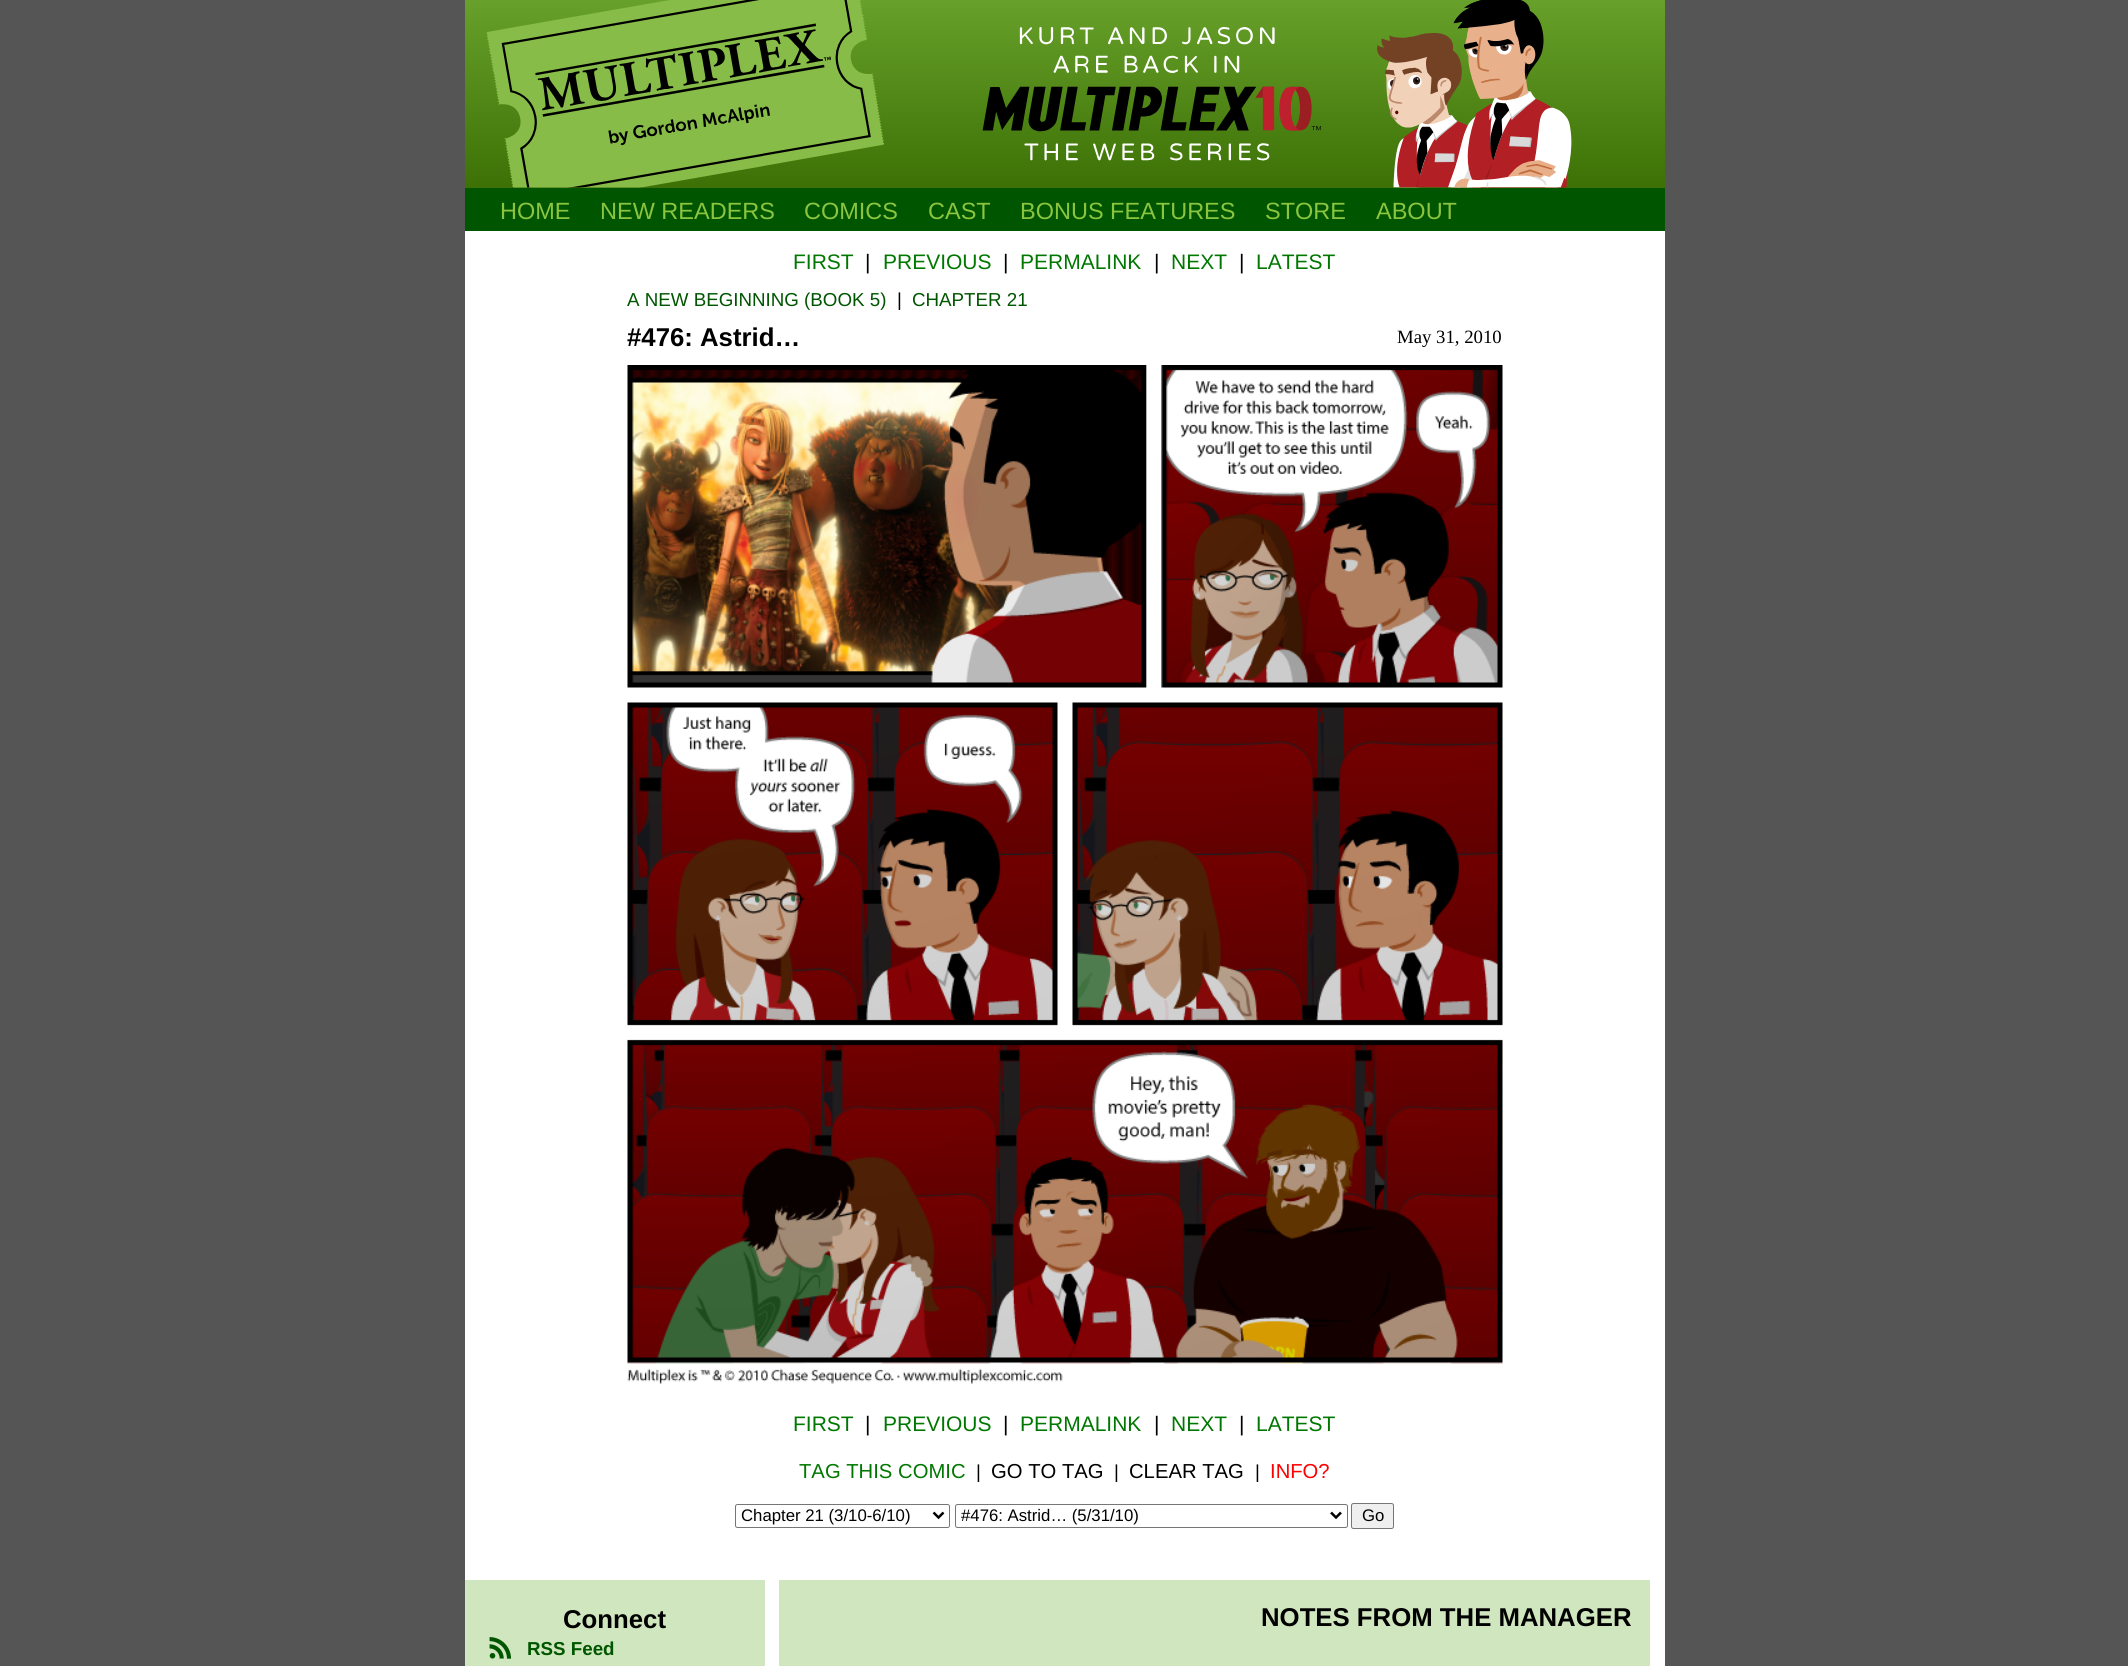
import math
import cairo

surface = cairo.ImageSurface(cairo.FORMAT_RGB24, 2128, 1666)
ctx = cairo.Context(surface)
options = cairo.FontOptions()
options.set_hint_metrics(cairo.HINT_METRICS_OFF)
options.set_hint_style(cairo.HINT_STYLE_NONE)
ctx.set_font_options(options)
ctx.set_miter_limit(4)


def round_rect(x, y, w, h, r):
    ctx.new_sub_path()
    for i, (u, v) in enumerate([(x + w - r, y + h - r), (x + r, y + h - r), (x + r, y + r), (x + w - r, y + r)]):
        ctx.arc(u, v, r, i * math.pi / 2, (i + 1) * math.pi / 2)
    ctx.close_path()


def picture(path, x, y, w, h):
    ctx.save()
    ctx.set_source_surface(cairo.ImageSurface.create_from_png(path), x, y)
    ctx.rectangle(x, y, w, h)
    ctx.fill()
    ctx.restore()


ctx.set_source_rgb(0.333, 0.333, 0.333)
ctx.paint()
gradient = cairo.LinearGradient(1065, 0, 1065, 188)
gradient.add_color_stop_rgba(0, 0.404, 0.627, 0.165, 1)
gradient.add_color_stop_rgba(1, 0.239, 0.443, 0.024, 1)
ctx.set_source(gradient)
ctx.rectangle(465, 0, 1200, 188)
ctx.fill()
picture("img1.png", 486, 0, 399, 188)
picture("img2.png", 982, 0, 590, 188)
ctx.set_source_rgb(0, 0.333, 0)
ctx.rectangle(465, 188, 1200, 43)
ctx.fill()
ctx.select_font_face("Liberation Sans")
ctx.set_font_size(23.5)
ctx.set_source_rgb(0.545, 0.773, 0.247)
ctx.move_to(500, 219)
ctx.show_text("HOME")
ctx.move_to(600, 219)
ctx.show_text("NEW READERS")
ctx.move_to(804, 219)
ctx.show_text("COMICS")
ctx.move_to(928, 219)
ctx.show_text("CAST")
ctx.move_to(1020, 219)
ctx.show_text("BONUS FEATURES")
ctx.move_to(1265, 219)
ctx.show_text("STORE")
ctx.move_to(1376, 219)
ctx.show_text("ABOUT")
ctx.set_source_rgb(1, 1, 1)
ctx.rectangle(465, 231, 1200, 1435)
ctx.fill()
ctx.set_font_size(21)
ctx.set_source_rgb(0, 0.467, 0)
ctx.move_to(793, 269)
ctx.show_text("FIRST")
ctx.set_source_rgb(0, 0, 0)
ctx.move_to(865, 269)
ctx.show_text("|")
ctx.set_source_rgb(0, 0.467, 0)
ctx.move_to(883, 269)
ctx.show_text("PREVIOUS")
ctx.set_source_rgb(0, 0, 0)
ctx.move_to(1003, 269)
ctx.show_text("|")
ctx.set_source_rgb(0, 0.467, 0)
ctx.move_to(1020, 269)
ctx.show_text("PERMALINK")
ctx.set_source_rgb(0, 0, 0)
ctx.move_to(1154, 269)
ctx.show_text("|")
ctx.set_source_rgb(0, 0.467, 0)
ctx.move_to(1171, 269)
ctx.show_text("NEXT")
ctx.set_source_rgb(0, 0, 0)
ctx.move_to(1239, 269)
ctx.show_text("|")
ctx.set_source_rgb(0, 0.467, 0)
ctx.move_to(1256, 269)
ctx.show_text("LATEST")
ctx.set_font_size(18.75)
ctx.set_source_rgb(0, 0.333, 0)
ctx.move_to(627, 306)
ctx.show_text("A NEW BEGINNING (BOOK 5)")
ctx.set_source_rgb(0, 0, 0)
ctx.move_to(897, 306)
ctx.show_text("|")
ctx.set_source_rgb(0, 0.333, 0)
ctx.move_to(912, 306)
ctx.show_text("CHAPTER 21")
ctx.select_font_face("Liberation Sans", cairo.FONT_SLANT_NORMAL, cairo.FONT_WEIGHT_BOLD)
ctx.set_font_size(25.75)
ctx.set_source_rgb(0, 0, 0)
ctx.move_to(627, 346)
ctx.show_text("#476: Astrid…")
ctx.select_font_face("Liberation Serif")
ctx.set_font_size(18.75)
ctx.move_to(1397, 343)
ctx.show_text("May 31, 2010")
picture("img3.png", 627, 365, 876, 1019)
ctx.select_font_face("Liberation Sans")
ctx.set_font_size(21)
ctx.set_source_rgb(0, 0.467, 0)
ctx.move_to(793, 1431)
ctx.show_text("FIRST")
ctx.set_source_rgb(0, 0, 0)
ctx.move_to(865, 1431)
ctx.show_text("|")
ctx.set_source_rgb(0, 0.467, 0)
ctx.move_to(883, 1431)
ctx.show_text("PREVIOUS")
ctx.set_source_rgb(0, 0, 0)
ctx.move_to(1003, 1431)
ctx.show_text("|")
ctx.set_source_rgb(0, 0.467, 0)
ctx.move_to(1020, 1431)
ctx.show_text("PERMALINK")
ctx.set_source_rgb(0, 0, 0)
ctx.move_to(1154, 1431)
ctx.show_text("|")
ctx.set_source_rgb(0, 0.467, 0)
ctx.move_to(1171, 1431)
ctx.show_text("NEXT")
ctx.set_source_rgb(0, 0, 0)
ctx.move_to(1239, 1431)
ctx.show_text("|")
ctx.set_source_rgb(0, 0.467, 0)
ctx.move_to(1256, 1431)
ctx.show_text("LATEST")
ctx.set_font_size(20.25)
ctx.move_to(799, 1478)
ctx.show_text("TAG THIS COMIC")
ctx.set_font_size(18.75)
ctx.set_source_rgb(0, 0, 0)
ctx.move_to(976, 1478)
ctx.show_text("|")
ctx.set_font_size(20.25)
ctx.move_to(991, 1478)
ctx.show_text("GO TO TAG")
ctx.set_font_size(18.75)
ctx.move_to(1114, 1478)
ctx.show_text("|")
ctx.set_font_size(20.25)
ctx.move_to(1129, 1478)
ctx.show_text("CLEAR TAG")
ctx.set_font_size(18.75)
ctx.move_to(1255, 1478)
ctx.show_text("|")
ctx.set_font_size(20.25)
ctx.set_source_rgb(1, 0, 0)
ctx.move_to(1270, 1478)
ctx.show_text("INFO?")
round_rect(735.5, 1504.5, 214, 23, 2)
ctx.set_source_rgb(0.463, 0.463, 0.463)
ctx.set_line_width(1)
ctx.stroke()
ctx.new_path()
ctx.move_to(933.5, 1512.5)
ctx.line_to(938.5, 1517.5)
ctx.line_to(943.5, 1512.5)
ctx.set_source_rgb(0, 0, 0)
ctx.set_line_width(2.5)
ctx.stroke()
ctx.set_font_size(16.75)
ctx.move_to(741, 1521)
ctx.show_text("Chapter 21 (3/10-6/10)")
round_rect(955.5, 1504.5, 392, 23, 2)
ctx.set_source_rgb(0.463, 0.463, 0.463)
ctx.set_line_width(1)
ctx.stroke()
ctx.new_path()
ctx.move_to(1331, 1512.5)
ctx.line_to(1336, 1517.5)
ctx.line_to(1341, 1512.5)
ctx.set_source_rgb(0, 0, 0)
ctx.set_line_width(2.5)
ctx.stroke()
ctx.move_to(961, 1521)
ctx.show_text("#476: Astrid… (5/31/10)")
ctx.set_source_rgb(0.937, 0.937, 0.937)
round_rect(1351.5, 1503.5, 42, 25, 2)
ctx.fill_preserve()
ctx.set_source_rgb(0.463, 0.463, 0.463)
ctx.set_line_width(1)
ctx.stroke()
ctx.set_source_rgb(0, 0, 0)
ctx.move_to(1362, 1521)
ctx.show_text("Go")
ctx.set_source_rgb(0.816, 0.902, 0.745)
ctx.rectangle(465, 1580, 300, 86)
ctx.fill()
ctx.select_font_face("Liberation Sans", cairo.FONT_SLANT_NORMAL, cairo.FONT_WEIGHT_BOLD)
ctx.set_font_size(25.75)
ctx.set_source_rgb(0, 0, 0)
ctx.move_to(563, 1628)
ctx.show_text("Connect")
picture("img4.png", 489, 1637, 23, 22)
ctx.set_font_size(18.75)
ctx.set_source_rgb(0, 0.333, 0)
ctx.move_to(527, 1655)
ctx.show_text("RSS Feed")
ctx.set_source_rgb(0.816, 0.902, 0.745)
ctx.rectangle(779, 1580, 871, 86)
ctx.fill()
ctx.set_font_size(25.75)
ctx.set_source_rgb(0, 0, 0)
ctx.move_to(1261, 1626)
ctx.show_text("NOTES FROM THE MANAGER")
surface.write_to_png("page.png")
